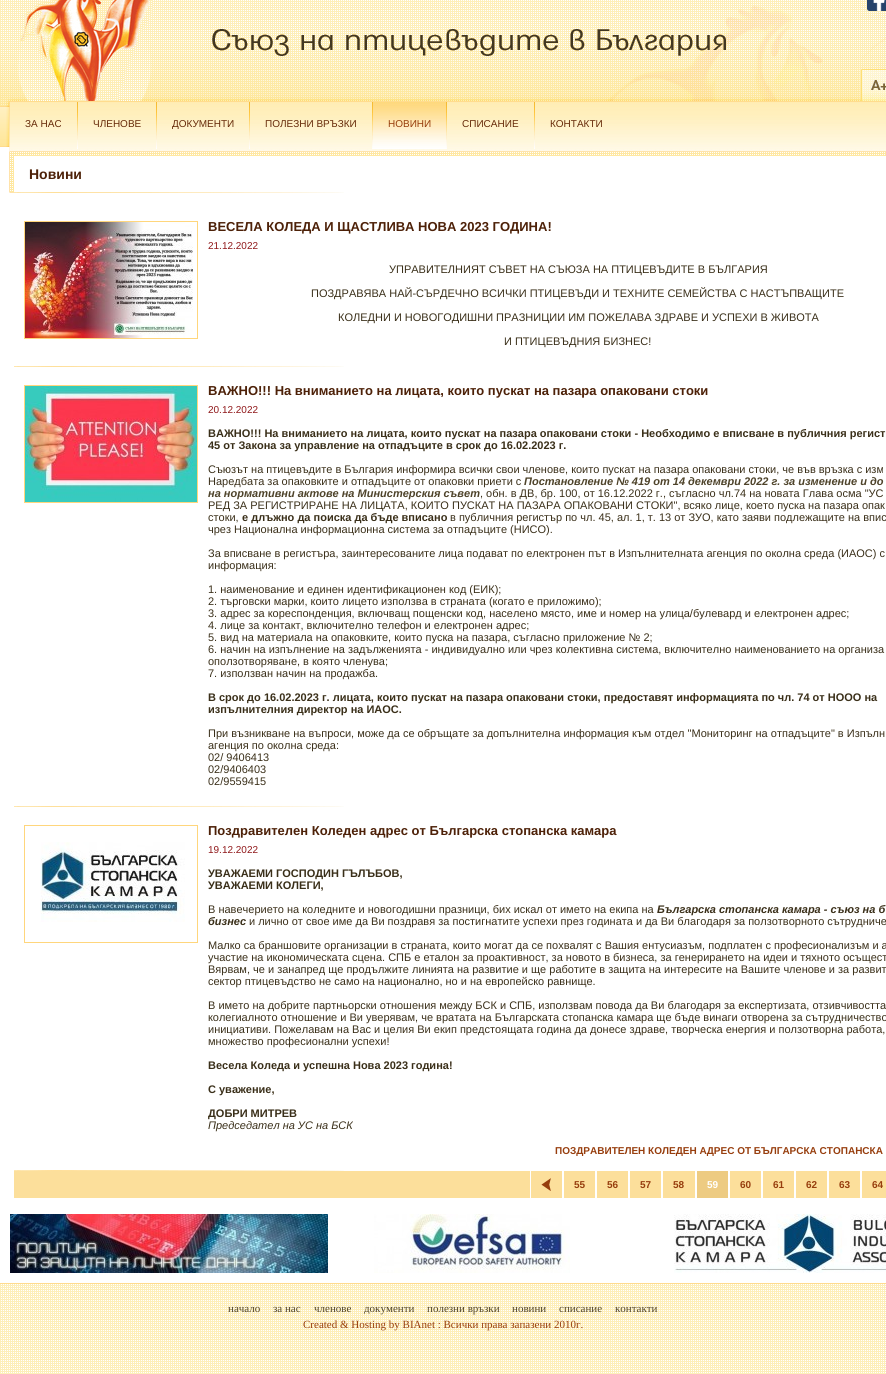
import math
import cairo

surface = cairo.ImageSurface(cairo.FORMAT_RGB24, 886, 1374)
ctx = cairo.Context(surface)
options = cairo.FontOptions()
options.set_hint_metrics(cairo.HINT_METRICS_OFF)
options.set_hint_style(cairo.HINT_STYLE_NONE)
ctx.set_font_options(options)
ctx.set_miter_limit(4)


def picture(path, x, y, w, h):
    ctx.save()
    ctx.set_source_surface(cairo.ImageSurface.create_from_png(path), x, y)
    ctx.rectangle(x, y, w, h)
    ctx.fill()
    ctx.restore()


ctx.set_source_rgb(1, 1, 1)
ctx.paint()
picture("img1.png", 0, 1284, 886, 90)
picture("img2.png", 0, 0, 867, 147)
ctx.set_source_rgb(1, 0.859, 0.557)
ctx.rectangle(0, 1283, 886, 1)
ctx.fill()
picture("img3.png", 7, 5, 879, 96)
picture("img4.png", 19, 0, 133, 101)
picture("img5.png", 867, 0, 19, 11)
picture("img6.png", 212, 29, 514, 27)
picture("img7.png", 861, 69, 25, 32)
picture("img8.png", 871, 80, 15, 10)
picture("img9.png", 6, 101, 4, 48)
picture("img10.png", 10, 102, 876, 47)
ctx.set_source_rgb(1, 0.863, 0.557)
ctx.rectangle(10, 101, 876, 1)
ctx.fill()
ctx.select_font_face("Liberation Sans")
ctx.set_font_size(10)
ctx.set_source_rgb(0.4, 0.165, 0.039)
ctx.move_to(25, 127)
ctx.show_text("ЗА НАС")
picture("img11.png", 77, 102, 1, 47)
ctx.move_to(93, 127)
ctx.show_text("ЧЛЕНОВЕ")
picture("img11.png", 156, 102, 1, 47)
ctx.move_to(172, 127)
ctx.show_text("ДОКУМЕНТИ")
picture("img11.png", 249, 102, 1, 47)
ctx.move_to(265, 127)
ctx.show_text("ПОЛЕЗНИ ВРЪЗКИ")
picture("img11.png", 372, 102, 1, 47)
picture("img12.png", 373, 102, 73, 47)
ctx.set_source_rgb(0.592, 0.243, 0.055)
ctx.move_to(388, 127)
ctx.show_text("НОВИНИ")
picture("img11.png", 446, 102, 1, 47)
ctx.set_source_rgb(0.4, 0.165, 0.039)
ctx.move_to(462, 127)
ctx.show_text("СПИСАНИЕ")
picture("img11.png", 534, 102, 1, 47)
ctx.move_to(550, 127)
ctx.show_text("КОНТАКТИ")
picture("img13.png", 9, 149, 877, 44)
ctx.set_source_rgb(1, 1, 1)
ctx.rectangle(14, 156, 872, 37)
ctx.fill()
picture("img14.png", 14, 192, 330, 1)
ctx.select_font_face("Liberation Sans", cairo.FONT_SLANT_NORMAL, cairo.FONT_WEIGHT_BOLD)
ctx.set_font_size(14)
ctx.set_source_rgb(0.302, 0.129, 0.035)
ctx.move_to(29, 179)
ctx.show_text("Новини")
picture("img14.png", 14, 366, 330, 1)
ctx.rectangle(24.5, 221.5, 173, 117)
ctx.set_source_rgb(1, 0.839, 0.486)
ctx.set_line_width(1)
ctx.stroke()
picture("img15.png", 25, 222, 168, 116)
ctx.set_font_size(13)
ctx.set_source_rgb(0.302, 0.129, 0.035)
ctx.move_to(208, 231)
ctx.show_text("ВЕСЕЛА КОЛЕДА И ЩАСТЛИВА НОВА 2023 ГОДИНА!")
ctx.select_font_face("Liberation Sans")
ctx.set_font_size(10)
ctx.set_source_rgb(0.561, 0.09, 0.098)
ctx.move_to(208, 249)
ctx.show_text("21.12.2022")
ctx.set_font_size(11)
ctx.set_source_rgb(0.227, 0.184, 0.098)
ctx.move_to(389, 273)
ctx.show_text("УПРАВИТЕЛНИЯТ СЪВЕТ НА СЪЮЗА НА ПТИЦЕВЪДИТЕ В БЪЛГАРИЯ")
ctx.move_to(311, 297)
ctx.show_text("ПОЗДРАВЯВА НАЙ-СЪРДЕЧНО ВСИЧКИ ПТИЦЕВЪДИ И ТЕХНИТЕ СЕМЕЙСТВА С НАСТЪПВАЩИТЕ")
ctx.move_to(338, 321)
ctx.show_text("КОЛЕДНИ И НОВОГОДИШНИ ПРАЗНИЦИИ ИМ ПОЖЕЛАВА ЗДРАВЕ И УСПЕХИ В ЖИВОТА")
ctx.move_to(504, 345)
ctx.show_text("И ПТИЦЕВЪДНИЯ БИЗНЕС!")
picture("img14.png", 14, 806, 330, 1)
ctx.rectangle(24.5, 385.5, 173, 117)
ctx.set_source_rgb(1, 0.839, 0.486)
ctx.stroke()
picture("img16.png", 25, 386, 172, 116)
ctx.select_font_face("Liberation Sans", cairo.FONT_SLANT_NORMAL, cairo.FONT_WEIGHT_BOLD)
ctx.set_font_size(13)
ctx.set_source_rgb(0.302, 0.129, 0.035)
ctx.move_to(208, 395)
ctx.show_text("ВАЖНО!!! На вниманието на лицата, които пускат на пазара опаковани стоки")
ctx.select_font_face("Liberation Sans")
ctx.set_font_size(10)
ctx.set_source_rgb(0.561, 0.09, 0.098)
ctx.move_to(208, 413)
ctx.show_text("20.12.2022")
ctx.select_font_face("Liberation Sans", cairo.FONT_SLANT_NORMAL, cairo.FONT_WEIGHT_BOLD)
ctx.set_font_size(11)
ctx.set_source_rgb(0.227, 0.184, 0.098)
ctx.move_to(208, 437)
ctx.show_text("ВАЖНО!!! На вниманието на лицата, които пускат на пазара опаковани стоки - Необходимо е вписване в публичния регист")
ctx.move_to(208, 449)
ctx.show_text("45 от Закона за управление на отпадъците в срок до 16.02.2023 г.")
ctx.select_font_face("Liberation Sans")
ctx.move_to(208, 473)
ctx.show_text("Съюзът на птицевъдите в България информира всички свои членове, които пускат на пазара опаковани стоки, че във връзка с изм")
ctx.move_to(208, 485)
ctx.show_text("Наредбата за опаковките и отпадъците от опаковки приети с")
ctx.select_font_face("Liberation Sans", cairo.FONT_SLANT_ITALIC, cairo.FONT_WEIGHT_BOLD)
ctx.set_source_rgb(0.306, 0.263, 0.165)
ctx.move_to(524, 485)
ctx.show_text("Постановление № 419 от 14 декември 2022 г. за изменение и до")
ctx.move_to(208, 497)
ctx.show_text("на нормативни актове на Министерския съвет")
ctx.select_font_face("Liberation Sans")
ctx.set_source_rgb(0.227, 0.184, 0.098)
ctx.move_to(480, 497)
ctx.show_text(", обн. в ДВ, бр. 100, от 16.12.2022 г., съгласно чл.74 на новата Глава осма \"УС")
ctx.move_to(208, 509)
ctx.show_text("РЕД ЗА РЕГИСТРИРАНЕ НА ЛИЦАТА, КОИТО ПУСКАТ НА ПАЗАРА ОПАКОВАНИ СТОКИ\", всяко лице, което пуска на пазара опак")
ctx.move_to(208, 521)
ctx.show_text("стоки,")
ctx.select_font_face("Liberation Sans", cairo.FONT_SLANT_NORMAL, cairo.FONT_WEIGHT_BOLD)
ctx.move_to(242, 521)
ctx.show_text("е длъжно да поиска да бъде вписано")
ctx.select_font_face("Liberation Sans")
ctx.move_to(450, 521)
ctx.show_text("в публичния регистър по чл. 45, ал. 1, т. 13 от ЗУО, като заяви подлежащите на впис")
ctx.move_to(208, 533)
ctx.show_text("чрез Национална информационна система за отпадъците (НИСО).")
ctx.move_to(208, 557)
ctx.show_text("За вписване в регистъра, заинтересованите лица подават по електронен път в Изпълнителната агенция по околна среда (ИАОС) с")
ctx.move_to(208, 569)
ctx.show_text("информация:")
ctx.move_to(208, 593)
ctx.show_text("1. наименование и единен идентификационен код (ЕИК);")
ctx.move_to(208, 605)
ctx.show_text("2. търговски марки, които лицето използва в страната (когато е приложимо);")
ctx.move_to(208, 617)
ctx.show_text("3. адрес за кореспонденция, включващ пощенски код, населено място, име и номер на улица/булевард и електронен адрес;")
ctx.move_to(208, 629)
ctx.show_text("4. лице за контакт, включително телефон и електронен адрес;")
ctx.move_to(208, 641)
ctx.show_text("5. вид на материала на опаковките, които пуска на пазара, съгласно приложение № 2;")
ctx.move_to(208, 653)
ctx.show_text("6. начин на изпълнение на задълженията - индивидуално или чрез колективна система, включително наименованието на организа")
ctx.move_to(208, 665)
ctx.show_text("оползотворяване, в която членува;")
ctx.move_to(208, 677)
ctx.show_text("7. използван начин на продажба.")
ctx.select_font_face("Liberation Sans", cairo.FONT_SLANT_NORMAL, cairo.FONT_WEIGHT_BOLD)
ctx.move_to(208, 701)
ctx.show_text("В срок до 16.02.2023 г. лицата, които пускат на пазара опаковани стоки, предоставят информацията по чл. 74 от НООО на")
ctx.move_to(208, 713)
ctx.show_text("изпълнителния директор на ИАОС.")
ctx.select_font_face("Liberation Sans")
ctx.move_to(208, 737)
ctx.show_text("При възникване на въпроси, може да се обръщате за допълнителна информация към отдел \"Мониторинг на отпадъците\" в Изпълн")
ctx.move_to(208, 749)
ctx.show_text("агенция по околна среда:")
ctx.move_to(208, 761)
ctx.show_text("02/ 9406413")
ctx.move_to(208, 773)
ctx.show_text("02/9406403")
ctx.move_to(208, 785)
ctx.show_text("02/9559415")
picture("img14.png", 14, 1170, 330, 1)
ctx.rectangle(24.5, 825.5, 173, 117)
ctx.set_source_rgb(1, 0.839, 0.486)
ctx.stroke()
picture("img17.png", 40, 842, 145, 80)
ctx.select_font_face("Liberation Sans", cairo.FONT_SLANT_NORMAL, cairo.FONT_WEIGHT_BOLD)
ctx.set_font_size(13)
ctx.set_source_rgb(0.302, 0.129, 0.035)
ctx.move_to(208, 835)
ctx.show_text("Поздравителен Коледен адрес от Българска стопанска камара")
ctx.select_font_face("Liberation Sans")
ctx.set_font_size(10)
ctx.set_source_rgb(0.561, 0.09, 0.098)
ctx.move_to(208, 853)
ctx.show_text("19.12.2022")
ctx.select_font_face("Liberation Sans", cairo.FONT_SLANT_NORMAL, cairo.FONT_WEIGHT_BOLD)
ctx.set_font_size(11)
ctx.set_source_rgb(0.227, 0.184, 0.098)
ctx.move_to(208, 877)
ctx.show_text("УВАЖАЕМИ ГОСПОДИН ГЪЛЪБОВ,")
ctx.move_to(208, 889)
ctx.show_text("УВАЖАЕМИ КОЛЕГИ,")
ctx.select_font_face("Liberation Sans")
ctx.move_to(208, 913)
ctx.show_text("В навечерието на коледните и новогодишни празници, бих искал от името на екипа на")
ctx.select_font_face("Liberation Sans", cairo.FONT_SLANT_ITALIC, cairo.FONT_WEIGHT_BOLD)
ctx.move_to(657, 913)
ctx.show_text("Българска стопанска камара - съюз на б")
ctx.move_to(208, 925)
ctx.show_text("бизнес")
ctx.select_font_face("Liberation Sans")
ctx.move_to(249, 925)
ctx.show_text("и лично от свое име да Ви поздравя за постигнатите успехи през годината и да Ви благодаря за ползотворното сътрудниче")
ctx.move_to(208, 949)
ctx.show_text("Малко са браншовите организации в страната, които могат да се похвалят с Вашия ентусиазъм, подплатен с професионализъм и а")
ctx.move_to(208, 961)
ctx.show_text("участие на икономическата сцена. СПБ е еталон за проактивност, за новото в бизнеса, за генерирането на идеи и тяхното осъщест")
ctx.move_to(208, 973)
ctx.show_text("Вярвам, че и занапред ще продължите линията на развитие и ще работите в защита на интересите на Вашите членове и за развит")
ctx.move_to(208, 985)
ctx.show_text("сектор птицевъдство не само на национално, но и на европейско равнище.")
ctx.move_to(208, 1009)
ctx.show_text("В името на добрите партньорски отношения между БСК и СПБ, използвам повода да Ви благодаря за експертизата, отзивчивостта")
ctx.move_to(208, 1021)
ctx.show_text("колегиалното отношение и Ви уверявам, че вратата на Българската стопанска камара ще бъде винаги отворена за сътрудничество")
ctx.move_to(208, 1033)
ctx.show_text("инициативи. Пожелавам на Вас и целия Ви екип предстоящата година да донесе здраве, творческа енергия и ползотворна работа,")
ctx.move_to(208, 1045)
ctx.show_text("множество професионални успехи!")
ctx.select_font_face("Liberation Sans", cairo.FONT_SLANT_NORMAL, cairo.FONT_WEIGHT_BOLD)
ctx.move_to(208, 1069)
ctx.show_text("Весела Коледа и успешна Нова 2023 година!")
ctx.move_to(208, 1093)
ctx.show_text("С уважение,")
ctx.move_to(208, 1117)
ctx.show_text("ДОБРИ МИТРЕВ")
ctx.select_font_face("Liberation Sans", cairo.FONT_SLANT_ITALIC)
ctx.move_to(208, 1129)
ctx.show_text("Председател на УС на БСК")
ctx.select_font_face("Liberation Sans", cairo.FONT_SLANT_NORMAL, cairo.FONT_WEIGHT_BOLD)
ctx.set_font_size(10)
ctx.set_source_rgb(0.592, 0.243, 0.055)
ctx.move_to(555, 1154)
ctx.show_text("ПОЗДРАВИТЕЛЕН КОЛЕДЕН АДРЕС ОТ БЪЛГАРСКА СТОПАНСКА")
ctx.set_source_rgb(0.988, 0.875, 0.608)
ctx.rectangle(14, 1171, 872, 27)
ctx.fill()
picture("img18.png", 541, 1178, 10, 13)
ctx.set_source_rgb(1, 1, 1)
ctx.rectangle(562, 1171, 2, 27)
ctx.fill()
ctx.rectangle(530, 1171, 1, 27)
ctx.fill()
ctx.rectangle(595, 1171, 2, 27)
ctx.fill()
ctx.set_source_rgb(0.592, 0.243, 0.055)
ctx.move_to(574, 1188)
ctx.show_text("55")
ctx.set_source_rgb(1, 1, 1)
ctx.rectangle(628, 1171, 2, 27)
ctx.fill()
ctx.set_source_rgb(0.592, 0.243, 0.055)
ctx.move_to(607, 1188)
ctx.show_text("56")
ctx.set_source_rgb(1, 1, 1)
ctx.rectangle(661, 1171, 2, 27)
ctx.fill()
ctx.set_source_rgb(0.592, 0.243, 0.055)
ctx.move_to(640, 1188)
ctx.show_text("57")
ctx.set_source_rgb(1, 1, 1)
ctx.rectangle(695, 1171, 2, 27)
ctx.fill()
ctx.set_source_rgb(0.592, 0.243, 0.055)
ctx.move_to(673, 1188)
ctx.show_text("58")
ctx.set_source_rgb(0.929, 0.796, 0.51)
ctx.rectangle(697, 1171, 31, 27)
ctx.fill()
ctx.set_source_rgb(1, 1, 1)
ctx.rectangle(728, 1171, 2, 27)
ctx.fill()
ctx.move_to(707, 1188)
ctx.show_text("59")
ctx.rectangle(761, 1171, 2, 27)
ctx.fill()
ctx.set_source_rgb(0.592, 0.243, 0.055)
ctx.move_to(740, 1188)
ctx.show_text("60")
ctx.set_source_rgb(1, 1, 1)
ctx.rectangle(794, 1171, 2, 27)
ctx.fill()
ctx.set_source_rgb(0.592, 0.243, 0.055)
ctx.move_to(773, 1188)
ctx.show_text("61")
ctx.set_source_rgb(1, 1, 1)
ctx.rectangle(827, 1171, 2, 27)
ctx.fill()
ctx.set_source_rgb(0.592, 0.243, 0.055)
ctx.move_to(806, 1188)
ctx.show_text("62")
ctx.set_source_rgb(1, 1, 1)
ctx.rectangle(860, 1171, 2, 27)
ctx.fill()
ctx.set_source_rgb(0.592, 0.243, 0.055)
ctx.move_to(839, 1188)
ctx.show_text("63")
ctx.move_to(872, 1188)
ctx.show_text("64")
picture("img19.png", 10, 1214, 318, 59)
picture("img20.png", 374, 1214, 196, 59)
picture("img21.png", 674, 1214, 212, 59)
ctx.select_font_face("Liberation Serif")
ctx.set_font_size(11)
ctx.set_source_rgb(0.306, 0.263, 0.165)
ctx.move_to(228, 1312)
ctx.show_text("начало")
ctx.move_to(273, 1312)
ctx.show_text("за нас")
ctx.move_to(314, 1312)
ctx.show_text("членове")
ctx.move_to(364, 1312)
ctx.show_text("документи")
ctx.move_to(427, 1312)
ctx.show_text("полезни връзки")
ctx.move_to(512, 1312)
ctx.show_text("новини")
ctx.move_to(559, 1312)
ctx.show_text("списание")
ctx.move_to(615, 1312)
ctx.show_text("контакти")
ctx.set_source_rgb(0.592, 0.243, 0.055)
ctx.move_to(303, 1328)
ctx.show_text("Created & Hosting by BIAnet : Всички права запазени 2010г.")
surface.write_to_png("page.png")
